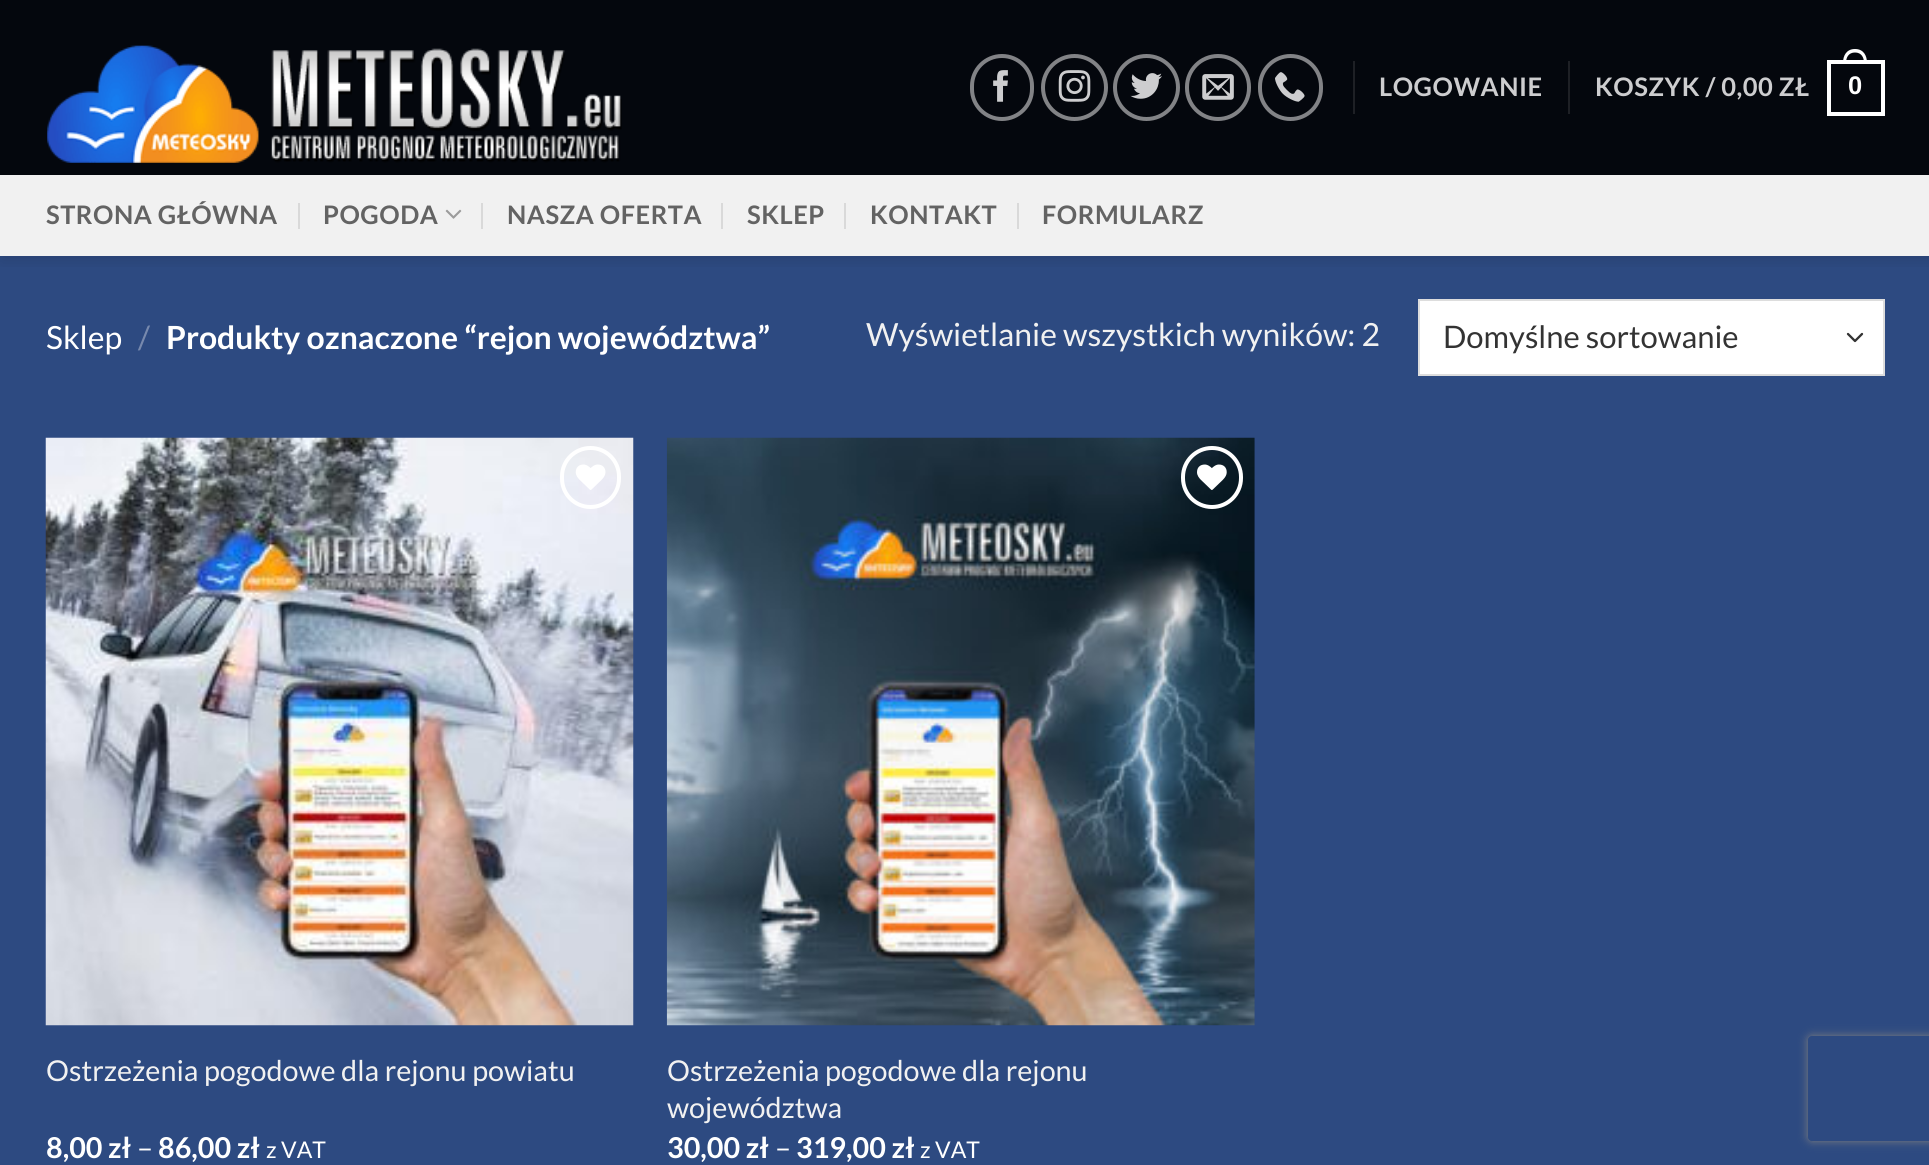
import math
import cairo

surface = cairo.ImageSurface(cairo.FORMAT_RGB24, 1929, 1165)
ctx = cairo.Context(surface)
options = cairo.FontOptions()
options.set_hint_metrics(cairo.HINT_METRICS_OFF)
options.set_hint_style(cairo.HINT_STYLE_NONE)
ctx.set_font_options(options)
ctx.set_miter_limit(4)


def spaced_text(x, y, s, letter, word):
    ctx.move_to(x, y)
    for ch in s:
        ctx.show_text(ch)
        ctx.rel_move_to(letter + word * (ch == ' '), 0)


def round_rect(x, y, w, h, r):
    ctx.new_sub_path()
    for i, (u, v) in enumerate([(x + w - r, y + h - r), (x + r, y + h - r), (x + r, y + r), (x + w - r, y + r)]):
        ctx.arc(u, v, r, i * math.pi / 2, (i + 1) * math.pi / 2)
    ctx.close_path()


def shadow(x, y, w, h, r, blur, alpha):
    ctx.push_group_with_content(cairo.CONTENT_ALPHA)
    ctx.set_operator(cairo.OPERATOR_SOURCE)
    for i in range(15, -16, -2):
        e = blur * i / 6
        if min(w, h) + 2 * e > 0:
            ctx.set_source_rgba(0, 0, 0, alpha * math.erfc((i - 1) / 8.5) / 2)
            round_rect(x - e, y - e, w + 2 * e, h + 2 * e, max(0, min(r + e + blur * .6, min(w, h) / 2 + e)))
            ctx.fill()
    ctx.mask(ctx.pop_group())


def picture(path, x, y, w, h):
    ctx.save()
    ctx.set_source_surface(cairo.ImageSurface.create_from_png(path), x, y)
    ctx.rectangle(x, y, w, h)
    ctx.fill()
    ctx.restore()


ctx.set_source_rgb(0.176, 0.29, 0.506)
ctx.paint()
ctx.save()
ctx.rectangle(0, 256, 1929, 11)
ctx.clip()
ctx.set_source_rgb(0, 0, 0)
shadow(2, 2, 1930, 255, 0, 9, 0.15)
ctx.restore()
ctx.set_source_rgba(0, 0, 0, 0.9)
ctx.rectangle(0, 0, 1929, 175)
ctx.fill()
picture("img1.png", 47, 45, 575, 118)
round_rect(972, 56, 60, 63, 30)
ctx.set_source_rgb(0.51, 0.514, 0.525)
ctx.set_line_width(4)
ctx.stroke()
picture("img2.png", 993, 70, 15, 32)
ctx.arc(1074.5, 87.5, 31.5, 0, 2 * math.pi)
ctx.stroke()
picture("img3.png", 1058, 70, 33, 32)
ctx.arc(1146.5, 87.5, 31.5, 0, 2 * math.pi)
ctx.stroke()
picture("img4.png", 1130, 73, 32, 26)
round_rect(1187, 56, 62, 63, 31)
ctx.stroke()
picture("img5.png", 1202, 74, 32, 26)
round_rect(1260, 56, 61, 63, 30.5)
ctx.stroke()
picture("img6.png", 1275, 72, 30, 30)
ctx.set_source_rgb(0.118, 0.125, 0.145)
ctx.rectangle(1353, 61, 2, 53)
ctx.fill()
ctx.select_font_face("Lato", cairo.FONT_SLANT_NORMAL, cairo.FONT_WEIGHT_BOLD)
ctx.set_font_size(25.5)
ctx.set_source_rgb(0.804, 0.804, 0.812)
spaced_text(1379, 96, "LOGOWANIE", 0.5, 0)
ctx.set_source_rgb(0.118, 0.125, 0.145)
ctx.rectangle(1568, 61, 2, 53)
ctx.fill()
ctx.set_source_rgb(0.804, 0.804, 0.812)
spaced_text(1595, 96, "KOSZYK / 0,00 ZŁ", 0.5, 0)
ctx.rectangle(1829, 62, 54, 52)
ctx.set_source_rgb(1, 1, 1)
ctx.stroke()
ctx.set_fill_rule(cairo.FILL_RULE_EVEN_ODD)
ctx.new_path()
ctx.move_to(1855, 49)
ctx.curve_to(1863.5, 49, 1867, 55.5, 1867, 63)
ctx.line_to(1843, 63)
ctx.curve_to(1843, 55.5, 1846.5, 49, 1855, 49)
ctx.close_path()
ctx.move_to(1855, 52.5)
ctx.curve_to(1861.5, 52.5, 1864, 57.5, 1864, 63)
ctx.line_to(1846, 63)
ctx.curve_to(1846, 57.5, 1848.5, 52.5, 1855, 52.5)
ctx.close_path()
ctx.fill()
ctx.select_font_face("Liberation Sans", cairo.FONT_SLANT_NORMAL, cairo.FONT_WEIGHT_BOLD)
spaced_text(1848, 94, "0", 0.5, 0)
ctx.set_source_rgb(0.945, 0.945, 0.945)
ctx.rectangle(0, 175, 1929, 81)
ctx.fill()
ctx.select_font_face("Lato", cairo.FONT_SLANT_NORMAL, cairo.FONT_WEIGHT_BOLD)
ctx.set_source_rgb(0.388, 0.388, 0.388)
spaced_text(46, 224, "STRONA GŁÓWNA", 0.5, 0)
ctx.set_source_rgb(0.851, 0.851, 0.851)
ctx.rectangle(298, 203, 2, 26)
ctx.fill()
ctx.set_source_rgb(0.388, 0.388, 0.388)
spaced_text(323, 224, "POGODA", 0.5, 0)
picture("img7.png", 445, 209, 17, 10)
ctx.set_source_rgb(0.851, 0.851, 0.851)
ctx.rectangle(481, 203, 2, 26)
ctx.fill()
ctx.set_source_rgb(0.388, 0.388, 0.388)
spaced_text(507, 224, "NASZA OFERTA", 0.5, 0)
ctx.set_source_rgb(0.851, 0.851, 0.851)
ctx.rectangle(721, 203, 2, 26)
ctx.fill()
ctx.set_source_rgb(0.388, 0.388, 0.388)
spaced_text(747, 224, "SKLEP", 0.5, 0)
ctx.set_source_rgb(0.851, 0.851, 0.851)
ctx.rectangle(844, 203, 2, 26)
ctx.fill()
ctx.set_source_rgb(0.388, 0.388, 0.388)
spaced_text(870, 224, "KONTAKT", 0.5, 0)
ctx.set_source_rgb(0.851, 0.851, 0.851)
ctx.rectangle(1017, 203, 2, 26)
ctx.fill()
ctx.set_source_rgb(0.388, 0.388, 0.388)
spaced_text(1042, 224, "FORMULARZ", 0.5, 0)
ctx.select_font_face("Lato")
ctx.set_font_size(31.9)
ctx.set_source_rgb(1, 1, 1)
ctx.move_to(46, 349)
ctx.show_text("Sklep")
ctx.set_source_rgb(0.467, 0.537, 0.678)
ctx.move_to(138, 349)
ctx.show_text("/")
ctx.select_font_face("Lato", cairo.FONT_SLANT_NORMAL, cairo.FONT_WEIGHT_BOLD)
ctx.set_source_rgb(1, 1, 1)
ctx.move_to(166, 349)
ctx.show_text("Produkty oznaczone “rejon województwa”")
ctx.select_font_face("Lato")
ctx.set_source_rgb(0.945, 0.945, 0.945)
ctx.move_to(866, 346)
ctx.show_text("Wyświetlanie wszystkich wyników: 2")
ctx.set_source_rgb(1, 1, 1)
ctx.rectangle(1420, 301, 463, 73)
ctx.fill()
ctx.new_path()
ctx.move_to(1848, 334)
ctx.line_to(1855, 341)
ctx.line_to(1862, 334)
ctx.set_source_rgb(0.2, 0.2, 0.2)
ctx.set_line_width(2.3)
ctx.set_line_cap(cairo.LINE_CAP_ROUND)
ctx.set_line_join(cairo.LINE_JOIN_ROUND)
ctx.stroke()
ctx.rectangle(1419, 300, 465, 75)
ctx.set_source_rgb(0.867, 0.867, 0.867)
ctx.set_line_width(2)
ctx.set_line_cap(cairo.LINE_CAP_BUTT)
ctx.set_line_join(cairo.LINE_JOIN_MITER)
ctx.stroke()
ctx.set_font_size(31)
ctx.set_source_rgb(0.2, 0.2, 0.2)
ctx.move_to(1443, 348)
ctx.show_text("Domyślne sortowanie")
picture("img8.png", 45, 437, 589, 589)
round_rect(562, 448, 57, 59, 28.5)
ctx.set_source_rgb(1, 1, 1)
ctx.set_line_width(4)
ctx.stroke()
picture("img9.png", 575, 464, 31, 26)
ctx.set_font_size(28.75)
ctx.set_source_rgb(0.945, 0.945, 0.945)
ctx.move_to(46, 1081)
ctx.show_text("Ostrzeżenia pogodowe dla rejonu powiatu")
ctx.select_font_face("Lato", cairo.FONT_SLANT_NORMAL, cairo.FONT_WEIGHT_BOLD)
ctx.set_source_rgb(1, 1, 1)
ctx.move_to(46, 1158)
ctx.show_text("8,00 zł")
ctx.select_font_face("Lato")
ctx.move_to(137, 1158)
ctx.show_text("–")
ctx.select_font_face("Lato", cairo.FONT_SLANT_NORMAL, cairo.FONT_WEIGHT_BOLD)
ctx.move_to(158, 1158)
ctx.show_text("86,00 zł")
ctx.select_font_face("Lato")
ctx.set_font_size(23)
ctx.move_to(266, 1158)
ctx.show_text("z VAT")
picture("img10.png", 666, 437, 589, 589)
round_rect(1183, 448, 58, 59, 29)
ctx.stroke()
picture("img11.png", 1197, 464, 30, 26)
ctx.set_font_size(28.75)
ctx.set_source_rgb(0.945, 0.945, 0.945)
ctx.move_to(667, 1081)
ctx.show_text("Ostrzeżenia pogodowe dla rejonu")
ctx.move_to(667, 1118)
ctx.show_text("województwa")
ctx.select_font_face("Lato", cairo.FONT_SLANT_NORMAL, cairo.FONT_WEIGHT_BOLD)
ctx.set_source_rgb(1, 1, 1)
ctx.move_to(667, 1158)
ctx.show_text("30,00 zł")
ctx.select_font_face("Lato")
ctx.move_to(775, 1158)
ctx.show_text("–")
ctx.select_font_face("Lato", cairo.FONT_SLANT_NORMAL, cairo.FONT_WEIGHT_BOLD)
ctx.move_to(796, 1158)
ctx.show_text("319,00 zł")
ctx.select_font_face("Lato")
ctx.set_font_size(23)
ctx.move_to(920, 1158)
ctx.show_text("z VAT")
ctx.save()
ctx.new_path()
ctx.move_to(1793, 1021)
ctx.line_to(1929, 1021)
ctx.line_to(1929, 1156)
ctx.line_to(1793, 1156)
ctx.close_path()
ctx.move_to(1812, 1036)
ctx.line_to(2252, 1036)
ctx.curve_to(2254, 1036, 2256, 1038, 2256, 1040)
ctx.line_to(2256, 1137)
ctx.curve_to(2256, 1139, 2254, 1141, 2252, 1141)
ctx.line_to(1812, 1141)
ctx.curve_to(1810, 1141, 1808, 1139, 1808, 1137)
ctx.line_to(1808, 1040)
ctx.curve_to(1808, 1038, 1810, 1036, 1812, 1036)
ctx.close_path()
ctx.clip()
ctx.set_source_rgb(0.502, 0.502, 0.502)
shadow(1808, 1036, 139, 105, 4, 4.5, 1)
ctx.restore()
surface.write_to_png("page.png")
